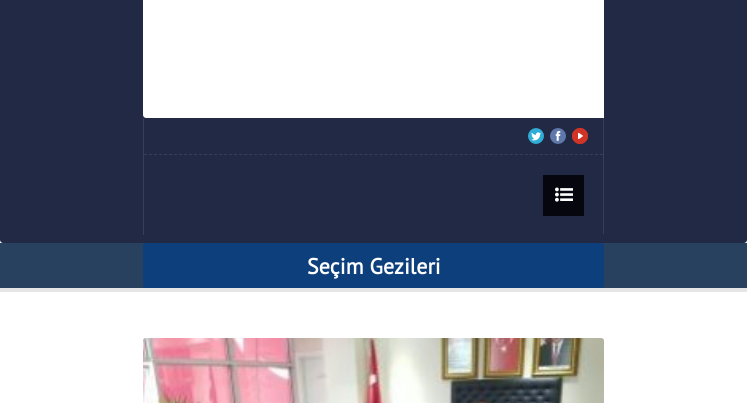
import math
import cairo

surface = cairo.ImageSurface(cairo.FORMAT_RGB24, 747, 403)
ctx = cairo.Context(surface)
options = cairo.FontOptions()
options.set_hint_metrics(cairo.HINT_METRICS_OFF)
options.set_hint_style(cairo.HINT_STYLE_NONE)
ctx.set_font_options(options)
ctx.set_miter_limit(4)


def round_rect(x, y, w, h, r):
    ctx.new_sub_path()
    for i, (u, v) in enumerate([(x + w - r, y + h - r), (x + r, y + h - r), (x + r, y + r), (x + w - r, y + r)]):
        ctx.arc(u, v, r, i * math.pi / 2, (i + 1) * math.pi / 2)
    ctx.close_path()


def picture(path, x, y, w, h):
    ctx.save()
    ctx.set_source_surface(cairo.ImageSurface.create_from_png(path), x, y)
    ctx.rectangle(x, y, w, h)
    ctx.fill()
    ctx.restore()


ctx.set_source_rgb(1, 1, 1)
ctx.paint()
ctx.set_source_rgb(0.133, 0.161, 0.271)
ctx.new_path()
ctx.move_to(0, 0)
ctx.line_to(747, 0)
ctx.line_to(747, 240)
ctx.curve_to(747, 241.5, 745.5, 243, 744, 243)
ctx.line_to(3, 243)
ctx.curve_to(1.5, 243, 0, 241.5, 0, 240)
ctx.close_path()
ctx.fill()
ctx.set_source_rgb(1, 1, 1)
ctx.new_path()
ctx.move_to(143, 0)
ctx.line_to(604, 0)
ctx.line_to(604, 118)
ctx.line_to(146, 118)
ctx.curve_to(144.5, 118, 143, 116.5, 143, 115)
ctx.close_path()
ctx.fill()
ctx.set_source_rgb(0.22, 0.243, 0.345)
ctx.rectangle(603, 118, 1, 116)
ctx.fill()
ctx.rectangle(143, 118, 1, 117)
ctx.fill()
ctx.new_path()
ctx.move_to(144, 154.5)
ctx.line_to(603, 154.5)
ctx.set_line_width(1)
ctx.set_dash([3, 2.01])
ctx.stroke()
picture("img1.png", 528, 128, 16, 16)
picture("img2.png", 550, 128, 16, 16)
picture("img3.png", 572, 128, 16, 16)
ctx.set_source_rgb(0.027, 0.031, 0.055)
ctx.rectangle(543, 175, 41, 41)
ctx.fill()
picture("img4.png", 555, 187, 18, 15)
ctx.set_source_rgb(0.157, 0.255, 0.373)
ctx.rectangle(0, 243, 747, 45)
ctx.fill()
ctx.set_source_rgb(0.047, 0.247, 0.486)
round_rect(143, 243, 461, 45, 3)
ctx.fill()
ctx.select_font_face("PT Sans", cairo.FONT_SLANT_NORMAL, cairo.FONT_WEIGHT_BOLD)
ctx.set_font_size(22)
ctx.set_source_rgb(1, 1, 1)
ctx.move_to(307, 274)
ctx.show_text("Seçim Gezileri")
ctx.set_source_rgb(0.902, 0.902, 0.902)
ctx.rectangle(0, 288, 747, 4)
ctx.fill()
picture("img5.png", 143, 338, 461, 65)
surface.write_to_png("page.png")
